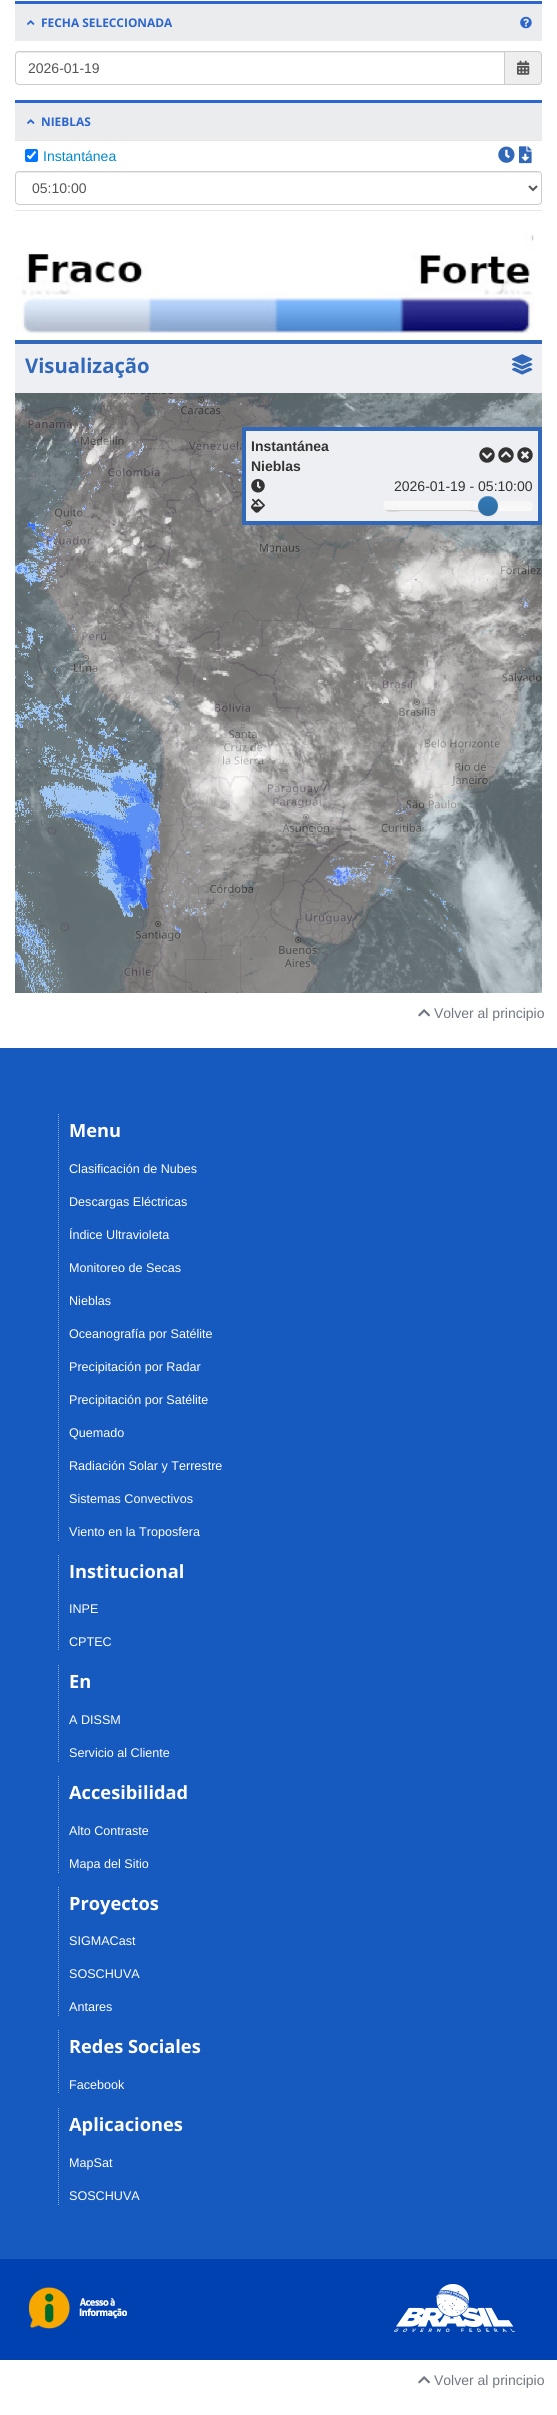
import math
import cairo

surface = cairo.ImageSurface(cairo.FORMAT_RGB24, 557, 2415)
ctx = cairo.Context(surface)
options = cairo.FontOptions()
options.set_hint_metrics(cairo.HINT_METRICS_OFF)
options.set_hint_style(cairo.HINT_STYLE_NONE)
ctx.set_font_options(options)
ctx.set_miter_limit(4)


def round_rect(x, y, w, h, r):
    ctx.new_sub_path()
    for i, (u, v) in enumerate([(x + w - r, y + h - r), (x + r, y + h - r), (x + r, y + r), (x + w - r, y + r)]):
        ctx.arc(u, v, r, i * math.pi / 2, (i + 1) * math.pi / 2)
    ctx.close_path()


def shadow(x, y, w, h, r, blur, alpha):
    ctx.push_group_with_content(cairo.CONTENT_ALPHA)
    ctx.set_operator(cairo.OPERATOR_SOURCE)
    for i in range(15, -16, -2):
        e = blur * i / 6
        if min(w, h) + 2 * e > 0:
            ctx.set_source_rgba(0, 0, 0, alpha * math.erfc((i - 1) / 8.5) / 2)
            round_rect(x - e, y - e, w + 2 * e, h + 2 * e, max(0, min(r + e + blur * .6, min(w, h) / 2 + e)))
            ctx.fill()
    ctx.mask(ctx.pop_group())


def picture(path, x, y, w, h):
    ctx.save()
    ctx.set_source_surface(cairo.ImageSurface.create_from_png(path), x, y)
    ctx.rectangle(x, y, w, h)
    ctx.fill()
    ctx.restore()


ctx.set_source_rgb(1, 1, 1)
ctx.paint()
ctx.set_source_rgb(0.918, 0.922, 0.933)
ctx.rectangle(15, 4, 527, 37)
ctx.fill()
ctx.set_source_rgb(0.173, 0.4, 0.808)
ctx.rectangle(15, 1, 527, 3)
ctx.fill()
picture("img1.png", 27, 20, 8, 5)
ctx.select_font_face("Open Sans", cairo.FONT_SLANT_NORMAL, cairo.FONT_WEIGHT_BOLD)
ctx.set_font_size(11.9)
ctx.move_to(41, 27)
ctx.show_text("FECHA SELECCIONADA")
picture("img2.png", 520, 16, 12, 13)
ctx.set_source_rgb(0.925, 0.925, 0.925)
ctx.new_path()
ctx.move_to(19, 53)
ctx.line_to(504, 53)
ctx.line_to(504, 52)
ctx.line_to(19, 52)
ctx.curve_to(17, 52, 16, 54, 16, 56)
ctx.curve_to(16, 54, 17, 53, 19, 53)
ctx.close_path()
ctx.fill()
ctx.new_path()
ctx.move_to(19, 51.5)
ctx.line_to(504.5, 51.5)
ctx.line_to(504.5, 84.5)
ctx.line_to(19, 84.5)
ctx.curve_to(17, 84.5, 15.5, 83, 15.5, 81)
ctx.line_to(15.5, 55)
ctx.curve_to(15.5, 53, 17, 51.5, 19, 51.5)
ctx.close_path()
ctx.set_source_rgb(0.8, 0.8, 0.8)
ctx.set_line_width(1)
ctx.stroke()
ctx.select_font_face("Liberation Sans")
ctx.set_font_size(14)
ctx.set_source_rgb(0.333, 0.333, 0.333)
ctx.move_to(28, 73)
ctx.show_text("2026-01-19")
ctx.set_source_rgb(0.933, 0.933, 0.933)
ctx.new_path()
ctx.move_to(505, 51)
ctx.line_to(538, 51)
ctx.curve_to(540, 51, 542, 53, 542, 55)
ctx.line_to(542, 81)
ctx.curve_to(542, 83, 540, 85, 538, 85)
ctx.line_to(505, 85)
ctx.close_path()
ctx.fill()
ctx.set_source_rgb(0.8, 0.8, 0.8)
ctx.set_fill_rule(cairo.FILL_RULE_EVEN_ODD)
ctx.new_path()
ctx.move_to(505, 51)
ctx.line_to(538, 51)
ctx.curve_to(540, 51, 542, 53, 542, 55)
ctx.line_to(542, 81)
ctx.curve_to(542, 83, 540, 85, 538, 85)
ctx.line_to(505, 85)
ctx.close_path()
ctx.move_to(505, 52)
ctx.line_to(538, 52)
ctx.curve_to(539.5, 52, 541, 53.5, 541, 55)
ctx.line_to(541, 81)
ctx.curve_to(541, 82.5, 539.5, 84, 538, 84)
ctx.line_to(505, 84)
ctx.close_path()
ctx.fill()
picture("img3.png", 517, 60, 13, 15)
ctx.set_source_rgb(0.918, 0.922, 0.933)
ctx.rectangle(15, 103, 527, 37)
ctx.fill()
ctx.set_source_rgb(0.173, 0.4, 0.808)
ctx.rectangle(15, 100, 527, 3)
ctx.fill()
picture("img1.png", 27, 119, 8, 5)
ctx.select_font_face("Open Sans", cairo.FONT_SLANT_NORMAL, cairo.FONT_WEIGHT_BOLD)
ctx.set_font_size(11.9)
ctx.move_to(41, 126)
ctx.show_text("NIEBLAS")
ctx.set_source_rgb(0.91, 0.906, 0.906)
ctx.rectangle(15, 140, 527, 1)
ctx.fill()
ctx.rectangle(15, 210, 527, 1)
ctx.fill()
ctx.set_source_rgb(0, 0.459, 1)
round_rect(25, 149, 13, 13, 2)
ctx.fill()
ctx.new_path()
ctx.move_to(27.5, 155.5)
ctx.line_to(30, 158)
ctx.line_to(35.5, 151.5)
ctx.set_source_rgb(1, 1, 1)
ctx.set_line_width(2.1)
ctx.stroke()
ctx.select_font_face("Liberation Sans")
ctx.set_font_size(14)
ctx.set_source_rgb(0, 0.533, 0.8)
ctx.move_to(43, 161)
ctx.show_text("Instantánea")
picture("img4.png", 498, 146, 17, 17)
picture("img5.png", 519, 146, 13, 18)
ctx.set_source_rgb(0.925, 0.925, 0.925)
ctx.set_fill_rule(cairo.FILL_RULE_WINDING)
ctx.new_path()
ctx.move_to(19, 173)
ctx.line_to(538, 173)
ctx.curve_to(540, 173, 541, 174, 541, 176)
ctx.line_to(540, 173)
ctx.line_to(538, 172)
ctx.line_to(19, 172)
ctx.curve_to(17, 172, 16, 174, 16, 176)
ctx.curve_to(16, 174, 17, 173, 19, 173)
ctx.close_path()
ctx.fill()
round_rect(15.5, 171.5, 526, 33, 3.5)
ctx.set_source_rgb(0.8, 0.8, 0.8)
ctx.set_line_width(1)
ctx.stroke()
ctx.new_path()
ctx.move_to(529, 186)
ctx.line_to(533, 190)
ctx.line_to(537, 186)
ctx.set_source_rgb(0.333, 0.333, 0.333)
ctx.set_line_width(2)
ctx.stroke()
ctx.move_to(32, 193)
ctx.show_text("05:10:00")
picture("img6.png", 15, 234, 520, 100)
ctx.set_source_rgb(0.933, 0.937, 0.949)
ctx.rectangle(15, 344, 527, 49)
ctx.fill()
ctx.set_source_rgb(0.196, 0.408, 0.729)
ctx.rectangle(15, 340, 527, 4)
ctx.fill()
ctx.select_font_face("Open Sans", cairo.FONT_SLANT_NORMAL, cairo.FONT_WEIGHT_BOLD)
ctx.set_font_size(20.25)
ctx.move_to(25, 373)
ctx.show_text("Visualização")
picture("img7.png", 512, 354, 21, 21)
picture("img8.png", 15, 393, 527, 600)
ctx.rectangle(242, 427, 300, 98)
ctx.fill()
ctx.set_source_rgb(0.933, 0.937, 0.949)
ctx.rectangle(246, 431, 292, 90)
ctx.fill()
ctx.select_font_face("Liberation Sans", cairo.FONT_SLANT_NORMAL, cairo.FONT_WEIGHT_BOLD)
ctx.set_font_size(14)
ctx.set_source_rgb(0.2, 0.2, 0.2)
ctx.move_to(251, 451)
ctx.show_text("Instantánea")
ctx.move_to(251, 471)
ctx.show_text("Nieblas")
picture("img9.png", 479, 447, 16, 16)
picture("img10.png", 498, 447, 16, 16)
picture("img11.png", 517, 447, 16, 16)
picture("img12.png", 251, 479, 14, 14)
ctx.select_font_face("Liberation Sans")
ctx.move_to(394, 491)
ctx.show_text("2026-01-19 - 05:10:00")
picture("img13.png", 251, 498, 14, 15)
gradient = cairo.LinearGradient(458, 501, 458, 511)
gradient.add_color_stop_rgba(0, 0.961, 0.961, 0.961, 1)
gradient.add_color_stop_rgba(1, 0.976, 0.976, 0.976, 1)
ctx.set_source(gradient)
round_rect(383, 501, 150, 10, 4)
ctx.fill()
gradient = cairo.LinearGradient(436, 501, 436, 511)
gradient.add_color_stop_rgba(0, 0.976, 0.976, 0.976, 1)
gradient.add_color_stop_rgba(1, 0.961, 0.961, 0.961, 1)
ctx.set_source(gradient)
round_rect(383, 501, 105, 10, 4)
ctx.fill()
ctx.set_source_rgba(0, 0, 0, 0.15)
ctx.new_path()
ctx.move_to(383, 504)
ctx.curve_to(381, 515, 398, 511, 403, 511)
ctx.line_to(468, 511)
ctx.curve_to(471, 511, 488, 515, 488, 506)
ctx.curve_to(487, 512, 477, 511, 472, 510)
ctx.line_to(386, 510)
ctx.line_to(384, 509)
ctx.curve_to(383, 508, 383, 506, 383, 504)
ctx.close_path()
ctx.fill()
ctx.set_source_rgb(0, 0, 0)
shadow(478, 497, 20, 20, 10, 1, 0.05)
gradient = cairo.LinearGradient(488, 496, 488, 516)
gradient.add_color_stop_rgba(0, 0.2, 0.478, 0.718, 1)
gradient.add_color_stop_rgba(1, 0.18, 0.427, 0.643, 1)
ctx.set_source(gradient)
ctx.arc(488, 506, 10, 0, 2 * math.pi)
ctx.fill()
ctx.set_source_rgba(1, 1, 1, 0.2)
ctx.new_path()
ctx.move_to(488, 497)
ctx.curve_to(495.5, 497, 498.5, 503, 497.5, 509)
ctx.curve_to(501, 497, 483.5, 490.5, 479, 502)
ctx.curve_to(478, 504, 478, 506.5, 478.5, 509)
ctx.curve_to(477.5, 503, 480.5, 497, 488, 497)
ctx.close_path()
ctx.fill()
ctx.set_source_rgb(0.086, 0.349, 0.749)
ctx.rectangle(0, 1048, 557, 1211)
ctx.fill()
picture("img14.png", 418, 1009, 12, 8)
ctx.set_source_rgb(0.443, 0.467, 0.51)
ctx.move_to(434, 1018)
ctx.show_text("Volver al principio")
ctx.new_path()
ctx.move_to(58.5, 1114)
ctx.line_to(58.5, 1541)
ctx.set_source_rgb(0.545, 0.675, 0.875)
ctx.set_line_width(1)
ctx.set_dash([1, 1])
ctx.stroke()
ctx.select_font_face("Open Sans", cairo.FONT_SLANT_NORMAL, cairo.FONT_WEIGHT_BOLD)
ctx.set_font_size(18.25)
ctx.set_source_rgb(1, 1, 1)
ctx.move_to(69, 1137)
ctx.show_text("Menu")
ctx.select_font_face("Liberation Sans")
ctx.set_font_size(12.6)
ctx.move_to(69, 1173)
ctx.show_text("Clasificación de Nubes")
ctx.move_to(69, 1206)
ctx.show_text("Descargas Eléctricas")
ctx.move_to(69, 1239)
ctx.show_text("Índice Ultravioleta")
ctx.move_to(69, 1272)
ctx.show_text("Monitoreo de Secas")
ctx.move_to(69, 1305)
ctx.show_text("Nieblas")
ctx.move_to(69, 1338)
ctx.show_text("Oceanografía por Satélite")
ctx.move_to(69, 1371)
ctx.show_text("Precipitación por Radar")
ctx.move_to(69, 1404)
ctx.show_text("Precipitación por Satélite")
ctx.move_to(69, 1437)
ctx.show_text("Quemado")
ctx.move_to(69, 1470)
ctx.show_text("Radiación Solar y Terrestre")
ctx.move_to(69, 1503)
ctx.show_text("Sistemas Convectivos")
ctx.move_to(69, 1536)
ctx.show_text("Viento en la Troposfera")
ctx.new_path()
ctx.move_to(58.5, 1555)
ctx.line_to(58.5, 1651)
ctx.set_source_rgb(0.545, 0.675, 0.875)
ctx.stroke()
ctx.select_font_face("Open Sans", cairo.FONT_SLANT_NORMAL, cairo.FONT_WEIGHT_BOLD)
ctx.set_font_size(18.25)
ctx.set_source_rgb(1, 1, 1)
ctx.move_to(69, 1578)
ctx.show_text("Institucional")
ctx.select_font_face("Liberation Sans")
ctx.set_font_size(12.6)
ctx.move_to(69, 1613)
ctx.show_text("INPE")
ctx.move_to(69, 1646)
ctx.show_text("CPTEC")
ctx.new_path()
ctx.move_to(58.5, 1665)
ctx.line_to(58.5, 1762)
ctx.set_source_rgb(0.545, 0.675, 0.875)
ctx.stroke()
ctx.select_font_face("Open Sans", cairo.FONT_SLANT_NORMAL, cairo.FONT_WEIGHT_BOLD)
ctx.set_font_size(18.25)
ctx.set_source_rgb(1, 1, 1)
ctx.move_to(69, 1688)
ctx.show_text("En")
ctx.select_font_face("Liberation Sans")
ctx.set_font_size(12.6)
ctx.move_to(69, 1724)
ctx.show_text("A DISSM")
ctx.move_to(69, 1757)
ctx.show_text("Servicio al Cliente")
ctx.new_path()
ctx.move_to(58.5, 1776)
ctx.line_to(58.5, 1873)
ctx.set_source_rgb(0.545, 0.675, 0.875)
ctx.stroke()
ctx.select_font_face("Open Sans", cairo.FONT_SLANT_NORMAL, cairo.FONT_WEIGHT_BOLD)
ctx.set_font_size(18.25)
ctx.set_source_rgb(1, 1, 1)
ctx.move_to(69, 1799)
ctx.show_text("Accesibilidad")
ctx.select_font_face("Liberation Sans")
ctx.set_font_size(12.6)
ctx.move_to(69, 1835)
ctx.show_text("Alto Contraste")
ctx.move_to(69, 1868)
ctx.show_text("Mapa del Sitio")
ctx.new_path()
ctx.move_to(58.5, 1887)
ctx.line_to(58.5, 2016)
ctx.set_source_rgb(0.545, 0.675, 0.875)
ctx.stroke()
ctx.select_font_face("Open Sans", cairo.FONT_SLANT_NORMAL, cairo.FONT_WEIGHT_BOLD)
ctx.set_font_size(18.25)
ctx.set_source_rgb(1, 1, 1)
ctx.move_to(69, 1910)
ctx.show_text("Proyectos")
ctx.select_font_face("Liberation Sans")
ctx.set_font_size(12.6)
ctx.move_to(69, 1945)
ctx.show_text("SIGMACast")
ctx.move_to(69, 1978)
ctx.show_text("SOSCHUVA")
ctx.move_to(69, 2011)
ctx.show_text("Antares")
ctx.new_path()
ctx.move_to(58.5, 2030)
ctx.line_to(58.5, 2094)
ctx.set_source_rgb(0.545, 0.675, 0.875)
ctx.stroke()
ctx.select_font_face("Open Sans", cairo.FONT_SLANT_NORMAL, cairo.FONT_WEIGHT_BOLD)
ctx.set_font_size(18.25)
ctx.set_source_rgb(1, 1, 1)
ctx.move_to(69, 2053)
ctx.show_text("Redes Sociales")
ctx.select_font_face("Liberation Sans")
ctx.set_font_size(12.6)
ctx.move_to(69, 2089)
ctx.show_text("Facebook")
ctx.new_path()
ctx.move_to(58.5, 2108)
ctx.line_to(58.5, 2205)
ctx.set_source_rgb(0.545, 0.675, 0.875)
ctx.stroke()
ctx.select_font_face("Open Sans", cairo.FONT_SLANT_NORMAL, cairo.FONT_WEIGHT_BOLD)
ctx.set_font_size(18.25)
ctx.set_source_rgb(1, 1, 1)
ctx.move_to(69, 2131)
ctx.show_text("Aplicaciones")
ctx.select_font_face("Liberation Sans")
ctx.set_font_size(12.6)
ctx.move_to(69, 2167)
ctx.show_text("MapSat")
ctx.move_to(69, 2200)
ctx.show_text("SOSCHUVA")
ctx.set_source_rgb(0, 0.255, 0.698)
ctx.rectangle(0, 2259, 557, 101)
ctx.fill()
picture("img15.png", 29, 2287, 98, 42)
picture("img16.png", 394, 2284, 121, 48)
picture("img14.png", 418, 2376, 12, 8)
ctx.set_font_size(14)
ctx.set_source_rgb(0.443, 0.467, 0.51)
ctx.move_to(434, 2385)
ctx.show_text("Volver al principio")
surface.write_to_png("page.png")
